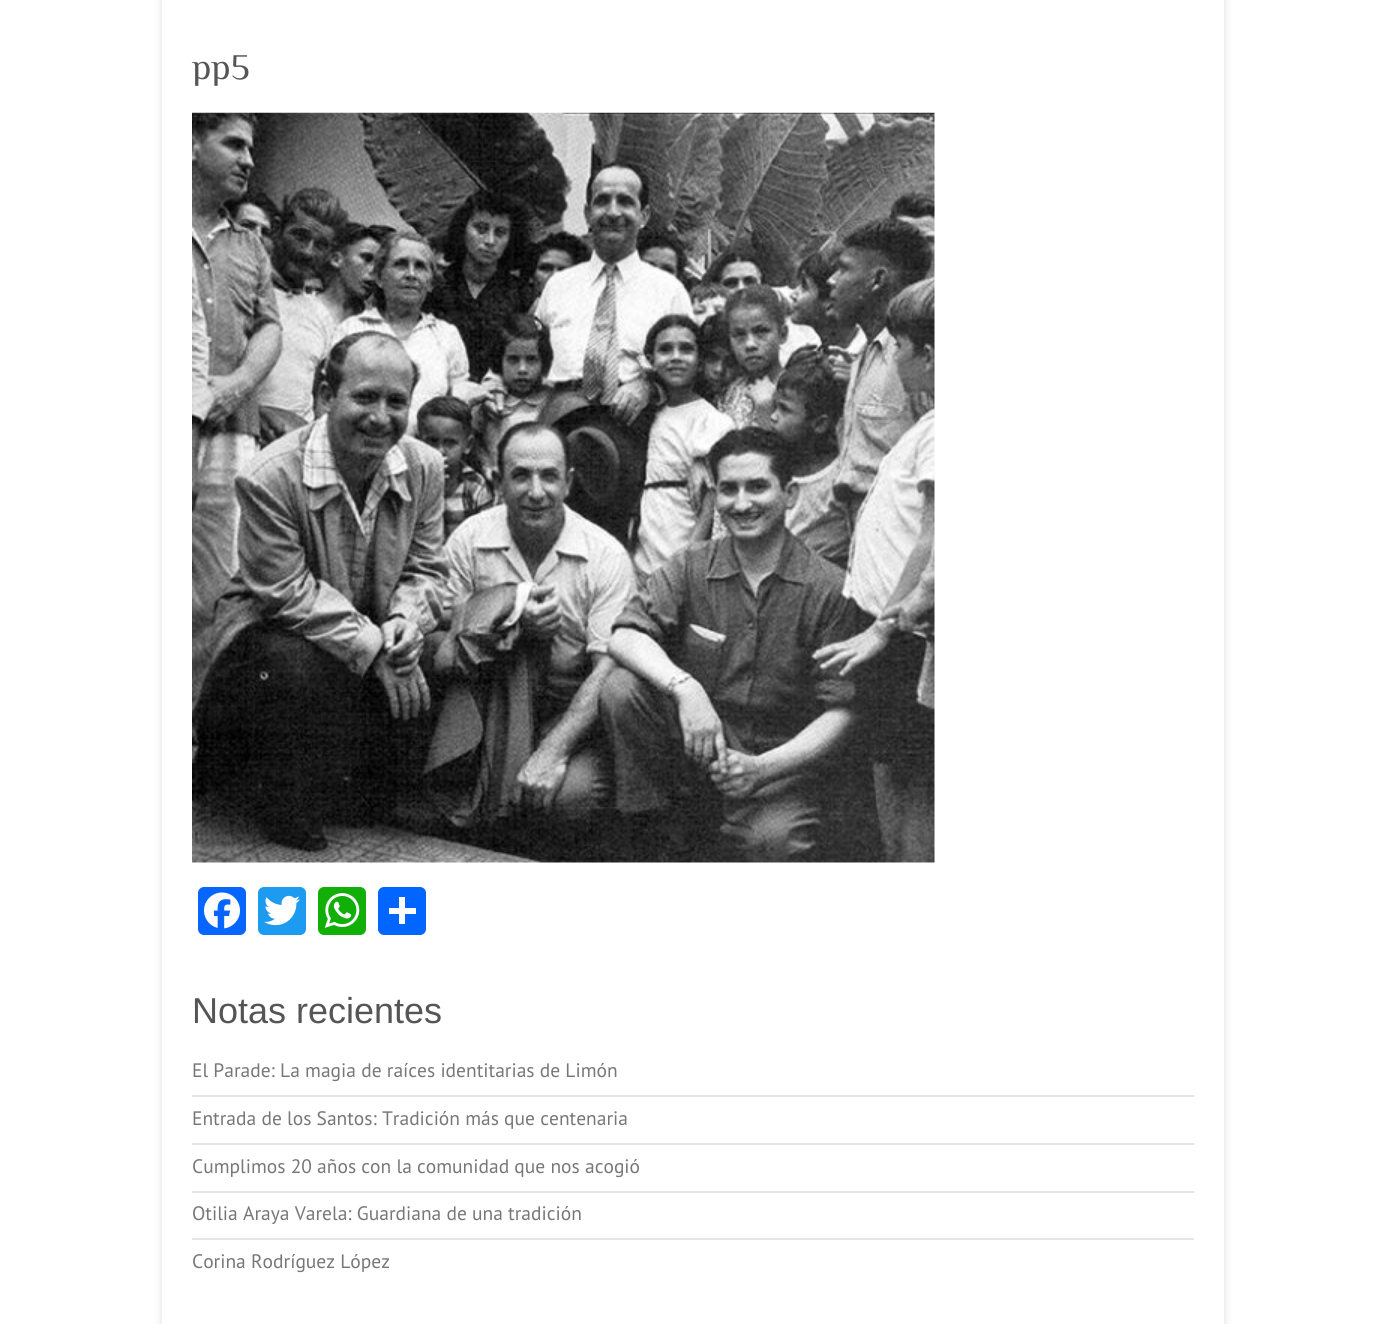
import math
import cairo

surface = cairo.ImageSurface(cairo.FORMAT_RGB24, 1385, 1324)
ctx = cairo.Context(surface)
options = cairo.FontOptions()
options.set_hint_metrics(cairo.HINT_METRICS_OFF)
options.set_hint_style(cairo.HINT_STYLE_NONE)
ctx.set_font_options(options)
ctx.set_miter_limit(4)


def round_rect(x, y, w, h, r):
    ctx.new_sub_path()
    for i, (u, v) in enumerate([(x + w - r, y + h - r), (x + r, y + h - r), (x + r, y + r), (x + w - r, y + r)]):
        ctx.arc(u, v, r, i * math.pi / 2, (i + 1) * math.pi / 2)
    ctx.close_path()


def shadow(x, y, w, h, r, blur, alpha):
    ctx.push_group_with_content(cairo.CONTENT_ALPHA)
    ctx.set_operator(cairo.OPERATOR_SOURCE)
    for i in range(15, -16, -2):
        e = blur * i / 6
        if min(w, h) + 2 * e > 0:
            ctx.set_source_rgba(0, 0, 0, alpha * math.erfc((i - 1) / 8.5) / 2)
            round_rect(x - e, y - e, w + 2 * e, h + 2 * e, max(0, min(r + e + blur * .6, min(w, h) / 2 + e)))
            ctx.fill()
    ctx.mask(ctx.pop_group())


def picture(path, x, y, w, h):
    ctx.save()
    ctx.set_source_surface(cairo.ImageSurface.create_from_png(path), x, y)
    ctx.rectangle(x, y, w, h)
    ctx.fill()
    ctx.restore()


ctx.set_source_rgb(1, 1, 1)
ctx.paint()
ctx.save()
ctx.set_fill_rule(cairo.FILL_RULE_EVEN_ODD)
ctx.new_path()
ctx.move_to(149, 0)
ctx.line_to(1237, 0)
ctx.line_to(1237, 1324)
ctx.line_to(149, 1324)
ctx.close_path()
ctx.move_to(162, -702)
ctx.line_to(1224, -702)
ctx.line_to(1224, 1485)
ctx.line_to(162, 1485)
ctx.close_path()
ctx.clip()
ctx.set_source_rgb(0.867, 0.867, 0.867)
shadow(162, -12, 1062, 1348, 0, 4, 1)
ctx.restore()
ctx.select_font_face("Philosopher")
ctx.set_font_size(36)
ctx.set_source_rgb(0.333, 0.333, 0.333)
ctx.move_to(192, 79)
ctx.show_text("pp5")
picture("img1.png", 192, 112, 743, 751)
ctx.set_source_rgb(0.031, 0.4, 1)
round_rect(198, 887, 48, 48, 6)
ctx.fill()
picture("img2.png", 204, 892, 36, 37)
ctx.set_source_rgb(0.114, 0.608, 0.941)
round_rect(258, 887, 48, 48, 6)
ctx.fill()
picture("img3.png", 264, 895, 36, 31)
ctx.set_source_rgb(0.071, 0.686, 0.039)
round_rect(318, 887, 48, 48, 6)
ctx.fill()
picture("img4.png", 324, 893, 36, 35)
ctx.set_source_rgb(0.004, 0.4, 1)
round_rect(378, 887, 48, 48, 6)
ctx.fill()
ctx.set_source_rgb(1, 1, 1)
ctx.rectangle(399, 897, 6, 27)
ctx.fill()
ctx.rectangle(389, 908, 27, 6)
ctx.fill()
ctx.select_font_face("Liberation Sans")
ctx.set_source_rgb(0.333, 0.333, 0.333)
ctx.move_to(192, 1023)
ctx.show_text("Notas recientes")
ctx.set_source_rgb(0.902, 0.902, 0.902)
ctx.rectangle(192, 1095, 1002, 2)
ctx.fill()
ctx.select_font_face("PT Sans")
ctx.set_font_size(19.5)
ctx.set_source_rgb(0.467, 0.467, 0.467)
ctx.move_to(192, 1077)
ctx.show_text("El Parade: La magia de raíces identitarias de Limón")
ctx.set_source_rgb(0.902, 0.902, 0.902)
ctx.rectangle(192, 1143, 1002, 2)
ctx.fill()
ctx.set_source_rgb(0.467, 0.467, 0.467)
ctx.move_to(192, 1125)
ctx.show_text("Entrada de los Santos: Tradición más que centenaria")
ctx.set_source_rgb(0.902, 0.902, 0.902)
ctx.rectangle(192, 1191, 1002, 2)
ctx.fill()
ctx.set_source_rgb(0.467, 0.467, 0.467)
ctx.move_to(192, 1173)
ctx.show_text("Cumplimos 20 años con la comunidad que nos acogió")
ctx.set_source_rgb(0.902, 0.902, 0.902)
ctx.rectangle(192, 1238, 1002, 2)
ctx.fill()
ctx.set_source_rgb(0.467, 0.467, 0.467)
ctx.move_to(192, 1220)
ctx.show_text("Otilia Araya Varela: Guardiana de una tradición")
ctx.move_to(192, 1268)
ctx.show_text("Corina Rodríguez López")
surface.write_to_png("page.png")
